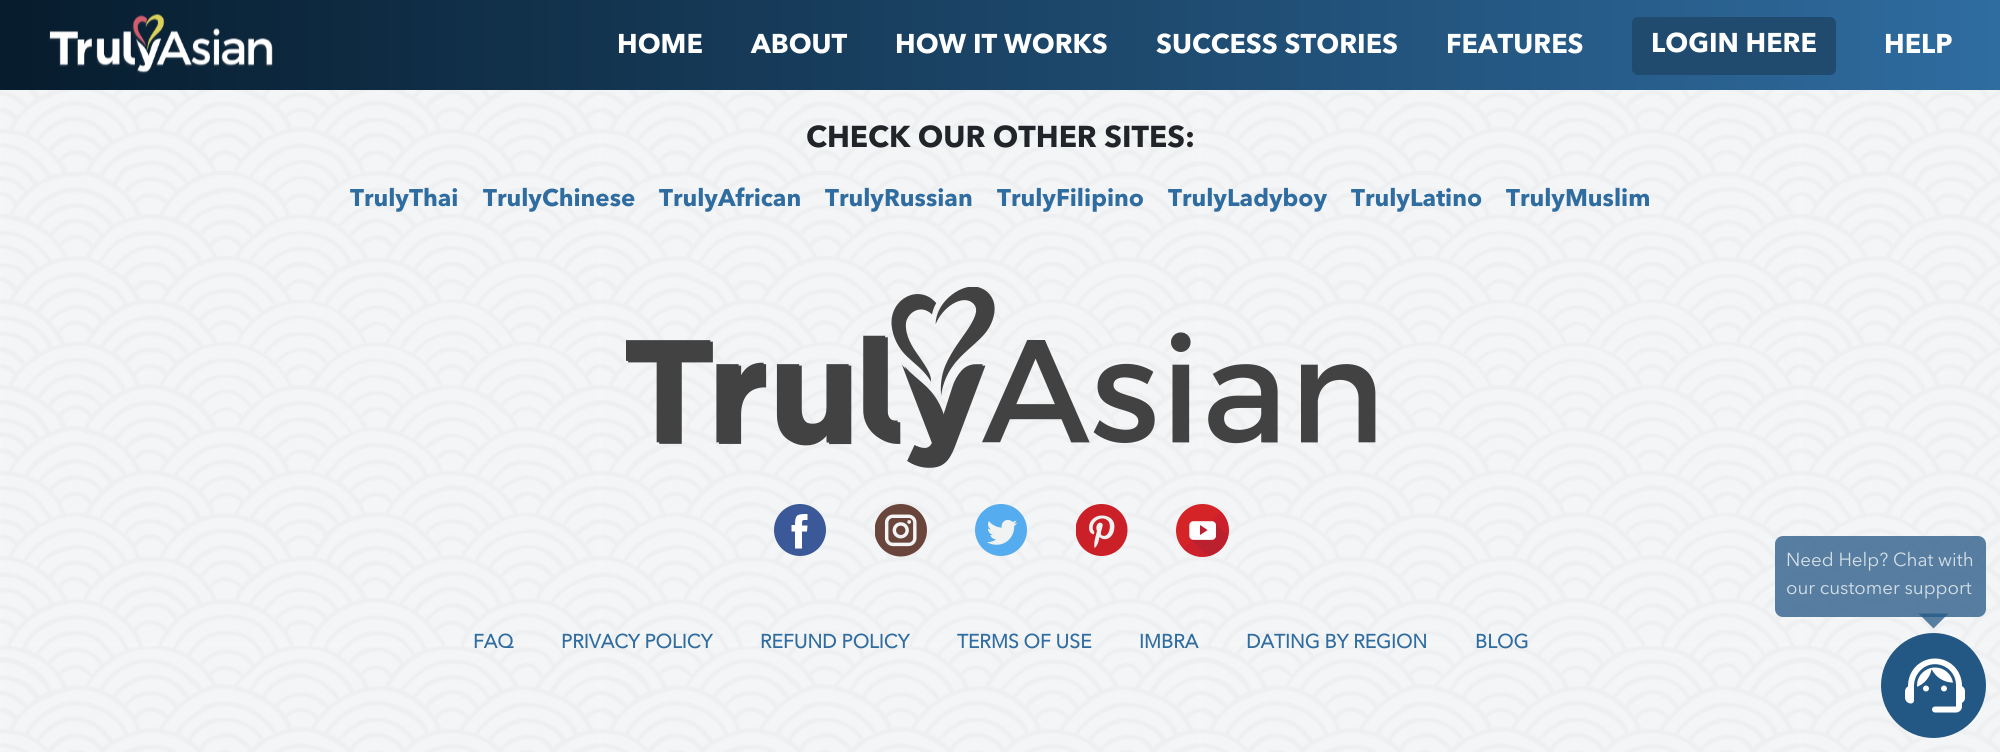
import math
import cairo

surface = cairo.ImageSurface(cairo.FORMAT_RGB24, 2000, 752)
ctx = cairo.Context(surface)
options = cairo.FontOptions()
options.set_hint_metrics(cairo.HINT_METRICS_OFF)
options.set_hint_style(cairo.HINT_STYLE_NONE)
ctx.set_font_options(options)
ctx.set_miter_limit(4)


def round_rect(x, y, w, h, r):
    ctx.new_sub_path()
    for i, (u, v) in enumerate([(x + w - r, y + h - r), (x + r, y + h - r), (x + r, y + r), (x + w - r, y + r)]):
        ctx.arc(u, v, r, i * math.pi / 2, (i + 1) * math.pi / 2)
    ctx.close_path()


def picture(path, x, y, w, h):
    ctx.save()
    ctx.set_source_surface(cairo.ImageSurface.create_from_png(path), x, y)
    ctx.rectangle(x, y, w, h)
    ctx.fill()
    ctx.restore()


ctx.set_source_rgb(1, 1, 1)
ctx.paint()
gradient = cairo.LinearGradient(0, 45, 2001, 45)
gradient.add_color_stop_rgba(0, 0.027, 0.11, 0.176, 1)
gradient.add_color_stop_rgba(1, 0.184, 0.424, 0.627, 1)
ctx.set_source(gradient)
ctx.rectangle(0, 0, 2000, 90)
ctx.fill()
picture("img1.png", 49, 14, 224, 60)
ctx.select_font_face("Avenir Next", cairo.FONT_SLANT_NORMAL, cairo.FONT_WEIGHT_BOLD)
ctx.set_font_size(27)
ctx.set_source_rgb(1, 1, 1)
ctx.move_to(617, 53)
ctx.show_text("HOME")
ctx.move_to(751, 53)
ctx.show_text("ABOUT")
ctx.move_to(895, 53)
ctx.show_text("HOW IT WORKS")
ctx.move_to(1156, 53)
ctx.show_text("SUCCESS STORIES")
ctx.move_to(1446, 53)
ctx.show_text("FEATURES")
ctx.set_source_rgb(0.125, 0.294, 0.431)
round_rect(1632, 17, 204, 58, 6)
ctx.fill()
ctx.set_source_rgb(1, 1, 1)
ctx.move_to(1651, 52)
ctx.show_text("LOGIN HERE")
ctx.move_to(1884, 53)
ctx.show_text("HELP")
picture("img2.png", 0, 90, 2000, 662)
ctx.set_font_size(30)
ctx.set_source_rgb(0.129, 0.145, 0.161)
ctx.move_to(806, 147)
ctx.show_text("CHECK OUR OTHER SITES:")
ctx.set_font_size(24)
ctx.set_source_rgb(0.184, 0.424, 0.627)
ctx.move_to(350, 206)
ctx.show_text("TrulyThai")
ctx.move_to(483, 206)
ctx.show_text("TrulyChinese")
ctx.move_to(659, 206)
ctx.show_text("TrulyAfrican")
ctx.move_to(825, 206)
ctx.show_text("TrulyRussian")
ctx.move_to(997, 206)
ctx.show_text("TrulyFilipino")
ctx.move_to(1168, 206)
ctx.show_text("TrulyLadyboy")
ctx.move_to(1351, 206)
ctx.show_text("TrulyLatino")
ctx.move_to(1506, 206)
ctx.show_text("TrulyMuslim")
picture("img3.png", 626, 287, 750, 181)
ctx.set_source_rgb(0.231, 0.349, 0.596)
ctx.arc(800, 530, 26, 0, 2 * math.pi)
ctx.fill()
ctx.set_source_rgb(1, 1, 1)
ctx.new_path()
ctx.move_to(807, 531.5)
ctx.line_to(802, 531.5)
ctx.line_to(802, 548.5)
ctx.line_to(795, 548.5)
ctx.line_to(795, 531.5)
ctx.line_to(791.5, 531.5)
ctx.line_to(791.5, 525)
ctx.line_to(795, 525)
ctx.curve_to(795, 514.5, 797, 514, 807.5, 514)
ctx.line_to(807.5, 520)
ctx.curve_to(802, 520, 802, 519.5, 802, 525.5)
ctx.line_to(807.5, 525.5)
ctx.close_path()
ctx.fill()
picture("img4.png", 875, 504, 52, 53)
picture("img5.png", 975, 504, 52, 52)
picture("img6.png", 1076, 504, 52, 52)
picture("img7.png", 1176, 504, 53, 53)
ctx.select_font_face("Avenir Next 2", cairo.FONT_SLANT_NORMAL, cairo.FONT_WEIGHT_BOLD)
ctx.set_font_size(19.25)
ctx.set_source_rgb(0.184, 0.424, 0.627)
ctx.move_to(473, 648)
ctx.show_text("FAQ")
ctx.move_to(561, 648)
ctx.show_text("PRIVACY POLICY")
ctx.move_to(760, 648)
ctx.show_text("REFUND POLICY")
ctx.move_to(957, 648)
ctx.show_text("TERMS OF USE")
ctx.move_to(1139, 648)
ctx.show_text("IMBRA")
ctx.move_to(1246, 648)
ctx.show_text("DATING BY REGION")
ctx.move_to(1475, 648)
ctx.show_text("BLOG")
ctx.set_source_rgba(0.137, 0.341, 0.518, 0.75)
round_rect(1775, 536, 211, 81, 8)
ctx.fill()
ctx.select_font_face("Avenir Next")
ctx.set_font_size(18.75)
ctx.set_source_rgb(0.835, 0.875, 0.906)
ctx.move_to(1786, 566)
ctx.show_text("Need Help? Chat with")
ctx.move_to(1786, 594)
ctx.show_text("our customer support")
ctx.set_source_rgba(0.137, 0.341, 0.518, 0.75)
ctx.new_path()
ctx.move_to(1918.5, 613.5)
ctx.line_to(1948.5, 613.5)
ctx.line_to(1933.5, 628.5)
ctx.close_path()
ctx.fill()
ctx.set_source_rgb(0.137, 0.341, 0.518)
ctx.arc(1933.5, 685.5, 52.5, 0, 2 * math.pi)
ctx.fill()
picture("img8.png", 1905, 658, 60, 55)
surface.write_to_png("page.png")
